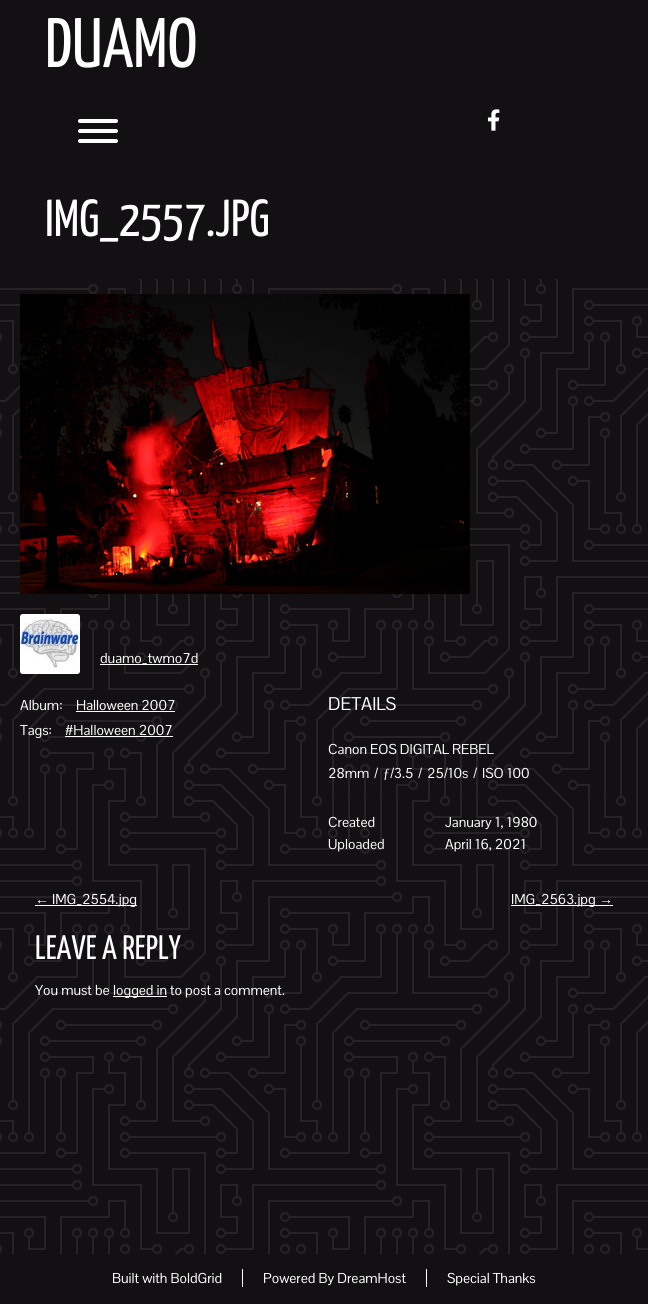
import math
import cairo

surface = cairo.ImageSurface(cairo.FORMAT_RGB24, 648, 1304)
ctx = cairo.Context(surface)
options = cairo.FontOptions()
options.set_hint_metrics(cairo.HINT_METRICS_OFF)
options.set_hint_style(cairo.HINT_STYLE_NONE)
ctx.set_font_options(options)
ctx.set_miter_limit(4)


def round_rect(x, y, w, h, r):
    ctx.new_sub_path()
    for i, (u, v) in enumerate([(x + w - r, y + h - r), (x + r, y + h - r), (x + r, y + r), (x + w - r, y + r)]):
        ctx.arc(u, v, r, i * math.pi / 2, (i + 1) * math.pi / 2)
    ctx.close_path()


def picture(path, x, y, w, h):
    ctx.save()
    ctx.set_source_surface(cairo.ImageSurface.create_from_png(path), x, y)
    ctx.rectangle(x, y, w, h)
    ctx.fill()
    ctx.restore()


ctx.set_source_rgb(0.071, 0.063, 0.071)
ctx.paint()
picture("img1.png", 0, 279, 648, 975)
ctx.select_font_face("Yanone Kaffeesatz")
ctx.set_font_size(70)
ctx.set_source_rgb(1, 1, 1)
ctx.move_to(45, 67)
ctx.show_text("DUAMO")
round_rect(78, 139, 40, 4, 2)
ctx.fill()
round_rect(78, 119, 40, 4, 2)
ctx.fill()
round_rect(78, 129, 40, 4, 2)
ctx.fill()
picture("img2.png", 487, 109, 13, 22)
ctx.set_font_size(52)
ctx.move_to(45, 236)
ctx.show_text("IMG_2557.JPG")
picture("img3.png", 20, 294, 450, 300)
picture("img4.png", 20, 614, 60, 60)
ctx.select_font_face("Pontano Sans")
ctx.set_font_size(14)
ctx.move_to(100, 663)
ctx.show_text("duamo_twmo7d")
ctx.rectangle(100, 664, 98, 1)
ctx.fill()
ctx.move_to(20, 710)
ctx.show_text("Album:")
ctx.move_to(76, 710)
ctx.show_text("Halloween 2007")
ctx.rectangle(76, 711, 99, 1)
ctx.fill()
ctx.move_to(20, 735)
ctx.show_text("Tags:")
ctx.move_to(65, 735)
ctx.show_text("#Halloween 2007")
ctx.rectangle(65, 736, 108, 1)
ctx.fill()
ctx.set_font_size(18)
ctx.move_to(328, 710)
ctx.show_text("DETAILS")
ctx.set_source_rgba(0, 0, 0, 0.1)
ctx.rectangle(328, 798, 293, 1)
ctx.fill()
ctx.set_font_size(14)
ctx.set_source_rgb(1, 1, 1)
ctx.move_to(328, 754)
ctx.show_text("Canon EOS DIGITAL REBEL")
ctx.move_to(328, 778)
ctx.show_text("28mm")
ctx.move_to(374, 778)
ctx.show_text("/")
ctx.select_font_face("Liberation Serif")
ctx.move_to(383, 778)
ctx.show_text("ƒ")
ctx.select_font_face("Pontano Sans")
ctx.move_to(390, 778)
ctx.show_text("/3.5")
ctx.move_to(418, 778)
ctx.show_text("/")
ctx.move_to(427, 778)
ctx.show_text("25/10s")
ctx.move_to(473, 778)
ctx.show_text("/")
ctx.move_to(482, 778)
ctx.show_text("ISO 100")
ctx.move_to(328, 827)
ctx.show_text("Created")
ctx.move_to(445, 827)
ctx.show_text("January 1, 1980")
ctx.move_to(328, 849)
ctx.show_text("Uploaded")
ctx.move_to(445, 849)
ctx.show_text("April 16, 2021")
ctx.select_font_face("Liberation Serif")
ctx.move_to(35, 904)
ctx.show_text("←")
ctx.rectangle(35, 905, 102, 1)
ctx.fill()
ctx.select_font_face("Pontano Sans")
ctx.move_to(52, 904)
ctx.show_text("IMG_2554.jpg")
ctx.rectangle(511, 905, 102, 1)
ctx.fill()
ctx.move_to(511, 904)
ctx.show_text("IMG_2563.jpg")
ctx.select_font_face("Liberation Serif")
ctx.move_to(599, 904)
ctx.show_text("→")
ctx.select_font_face("Yanone Kaffeesatz")
ctx.set_font_size(34)
ctx.move_to(35, 959)
ctx.show_text("LEAVE A REPLY")
ctx.select_font_face("Pontano Sans")
ctx.set_font_size(14)
ctx.move_to(35, 995)
ctx.show_text("You must be")
ctx.rectangle(113, 996, 54, 1)
ctx.fill()
ctx.move_to(113, 995)
ctx.show_text("logged in to post a comment.")
ctx.move_to(112, 1283)
ctx.show_text("Built with BoldGrid")
ctx.rectangle(242, 1269, 1, 18)
ctx.fill()
ctx.move_to(263, 1283)
ctx.show_text("Powered By DreamHost")
ctx.rectangle(426, 1269, 1, 18)
ctx.fill()
ctx.move_to(447, 1283)
ctx.show_text("Special Thanks")
surface.write_to_png("page.png")
